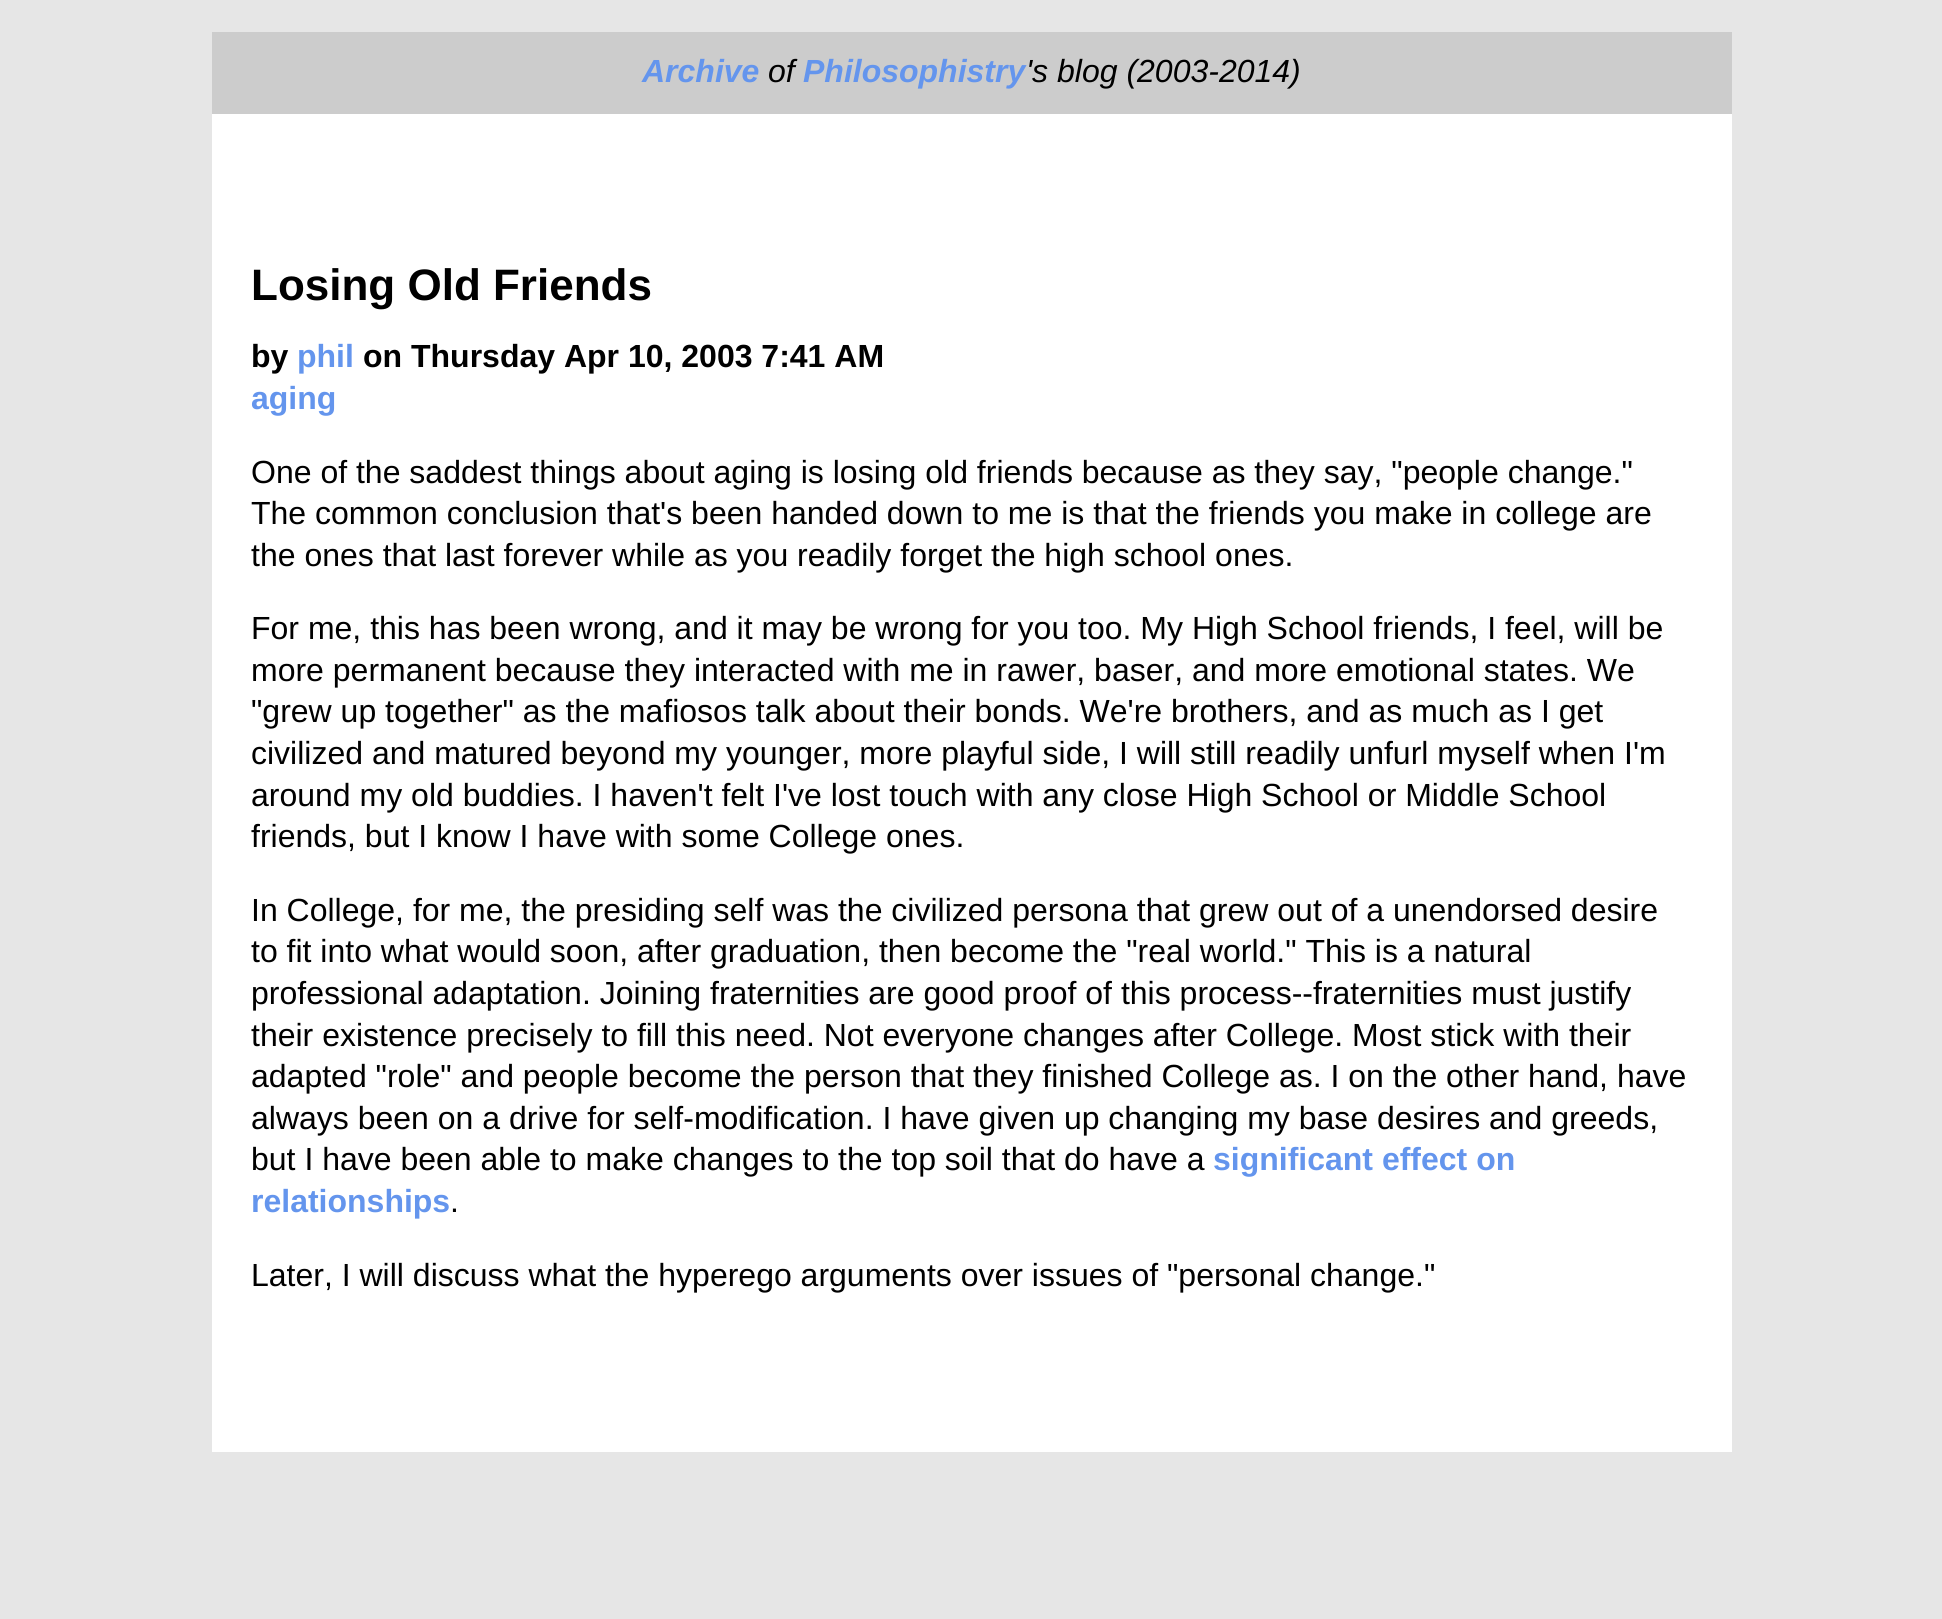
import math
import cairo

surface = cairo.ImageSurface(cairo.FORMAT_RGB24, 1942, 1619)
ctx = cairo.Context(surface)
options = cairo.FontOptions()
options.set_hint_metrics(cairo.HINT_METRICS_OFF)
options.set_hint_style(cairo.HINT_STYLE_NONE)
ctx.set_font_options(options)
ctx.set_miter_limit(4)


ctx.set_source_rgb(0.902, 0.902, 0.902)
ctx.paint()
ctx.set_source_rgb(0.8, 0.8, 0.8)
ctx.rectangle(212, 32, 1520, 82)
ctx.fill()
ctx.select_font_face("Liberation Sans", cairo.FONT_SLANT_ITALIC, cairo.FONT_WEIGHT_BOLD)
ctx.set_font_size(32)
ctx.set_source_rgb(0.392, 0.584, 0.929)
ctx.move_to(642, 82)
ctx.show_text("Archive")
ctx.select_font_face("Liberation Sans", cairo.FONT_SLANT_ITALIC)
ctx.set_source_rgb(0, 0, 0)
ctx.move_to(768, 82)
ctx.show_text("of")
ctx.select_font_face("Liberation Sans", cairo.FONT_SLANT_ITALIC, cairo.FONT_WEIGHT_BOLD)
ctx.set_source_rgb(0.392, 0.584, 0.929)
ctx.move_to(803, 82)
ctx.show_text("Philosophistry")
ctx.select_font_face("Liberation Sans", cairo.FONT_SLANT_ITALIC)
ctx.set_source_rgb(0, 0, 0)
ctx.move_to(1026, 82)
ctx.show_text("'s blog (2003-2014)")
ctx.set_source_rgb(1, 1, 1)
ctx.rectangle(212, 114, 1520, 1338)
ctx.fill()
ctx.select_font_face("Liberation Sans", cairo.FONT_SLANT_NORMAL, cairo.FONT_WEIGHT_BOLD)
ctx.set_font_size(44)
ctx.set_source_rgb(0, 0, 0)
ctx.move_to(251, 300)
ctx.show_text("Losing Old Friends")
ctx.set_font_size(32)
ctx.move_to(251, 367)
ctx.show_text("by")
ctx.set_source_rgb(0.392, 0.584, 0.929)
ctx.move_to(297, 367)
ctx.show_text("phil")
ctx.set_source_rgb(0, 0, 0)
ctx.move_to(363, 367)
ctx.show_text("on Thursday Apr 10, 2003 7:41 AM")
ctx.set_source_rgb(0.392, 0.584, 0.929)
ctx.move_to(251, 409)
ctx.show_text("aging")
ctx.select_font_face("Liberation Sans")
ctx.set_source_rgb(0, 0, 0)
ctx.move_to(251, 483)
ctx.show_text("One of the saddest things about aging is losing old friends because as they say, \"people change.\"")
ctx.move_to(251, 524)
ctx.show_text("The common conclusion that's been handed down to me is that the friends you make in college are")
ctx.move_to(251, 566)
ctx.show_text("the ones that last forever while as you readily forget the high school ones.")
ctx.move_to(251, 639)
ctx.show_text("For me, this has been wrong, and it may be wrong for you too. My High School friends, I feel, will be")
ctx.move_to(251, 681)
ctx.show_text("more permanent because they interacted with me in rawer, baser, and more emotional states. We")
ctx.move_to(251, 722)
ctx.show_text("\"grew up together\" as the mafiosos talk about their bonds. We're brothers, and as much as I get")
ctx.move_to(251, 764)
ctx.show_text("civilized and matured beyond my younger, more playful side, I will still readily unfurl myself when I'm")
ctx.move_to(251, 806)
ctx.show_text("around my old buddies. I haven't felt I've lost touch with any close High School or Middle School")
ctx.move_to(251, 847)
ctx.show_text("friends, but I know I have with some College ones.")
ctx.move_to(251, 921)
ctx.show_text("In College, for me, the presiding self was the civilized persona that grew out of a unendorsed desire")
ctx.move_to(251, 962)
ctx.show_text("to fit into what would soon, after graduation, then become the \"real world.\" This is a natural")
ctx.move_to(251, 1004)
ctx.show_text("professional adaptation. Joining fraternities are good proof of this process--fraternities must justify")
ctx.move_to(251, 1046)
ctx.show_text("their existence precisely to fill this need. Not everyone changes after College. Most stick with their")
ctx.move_to(251, 1087)
ctx.show_text("adapted \"role\" and people become the person that they finished College as. I on the other hand, have")
ctx.move_to(251, 1129)
ctx.show_text("always been on a drive for self-modification. I have given up changing my base desires and greeds,")
ctx.move_to(251, 1170)
ctx.show_text("but I have been able to make changes to the top soil that do have a")
ctx.select_font_face("Liberation Sans", cairo.FONT_SLANT_NORMAL, cairo.FONT_WEIGHT_BOLD)
ctx.set_source_rgb(0.392, 0.584, 0.929)
ctx.move_to(1213, 1170)
ctx.show_text("significant effect on")
ctx.move_to(251, 1212)
ctx.show_text("relationships")
ctx.select_font_face("Liberation Sans")
ctx.set_source_rgb(0, 0, 0)
ctx.move_to(450, 1212)
ctx.show_text(".")
ctx.move_to(251, 1286)
ctx.show_text("Later, I will discuss what the hyperego arguments over issues of \"personal change.\"")
surface.write_to_png("page.png")
